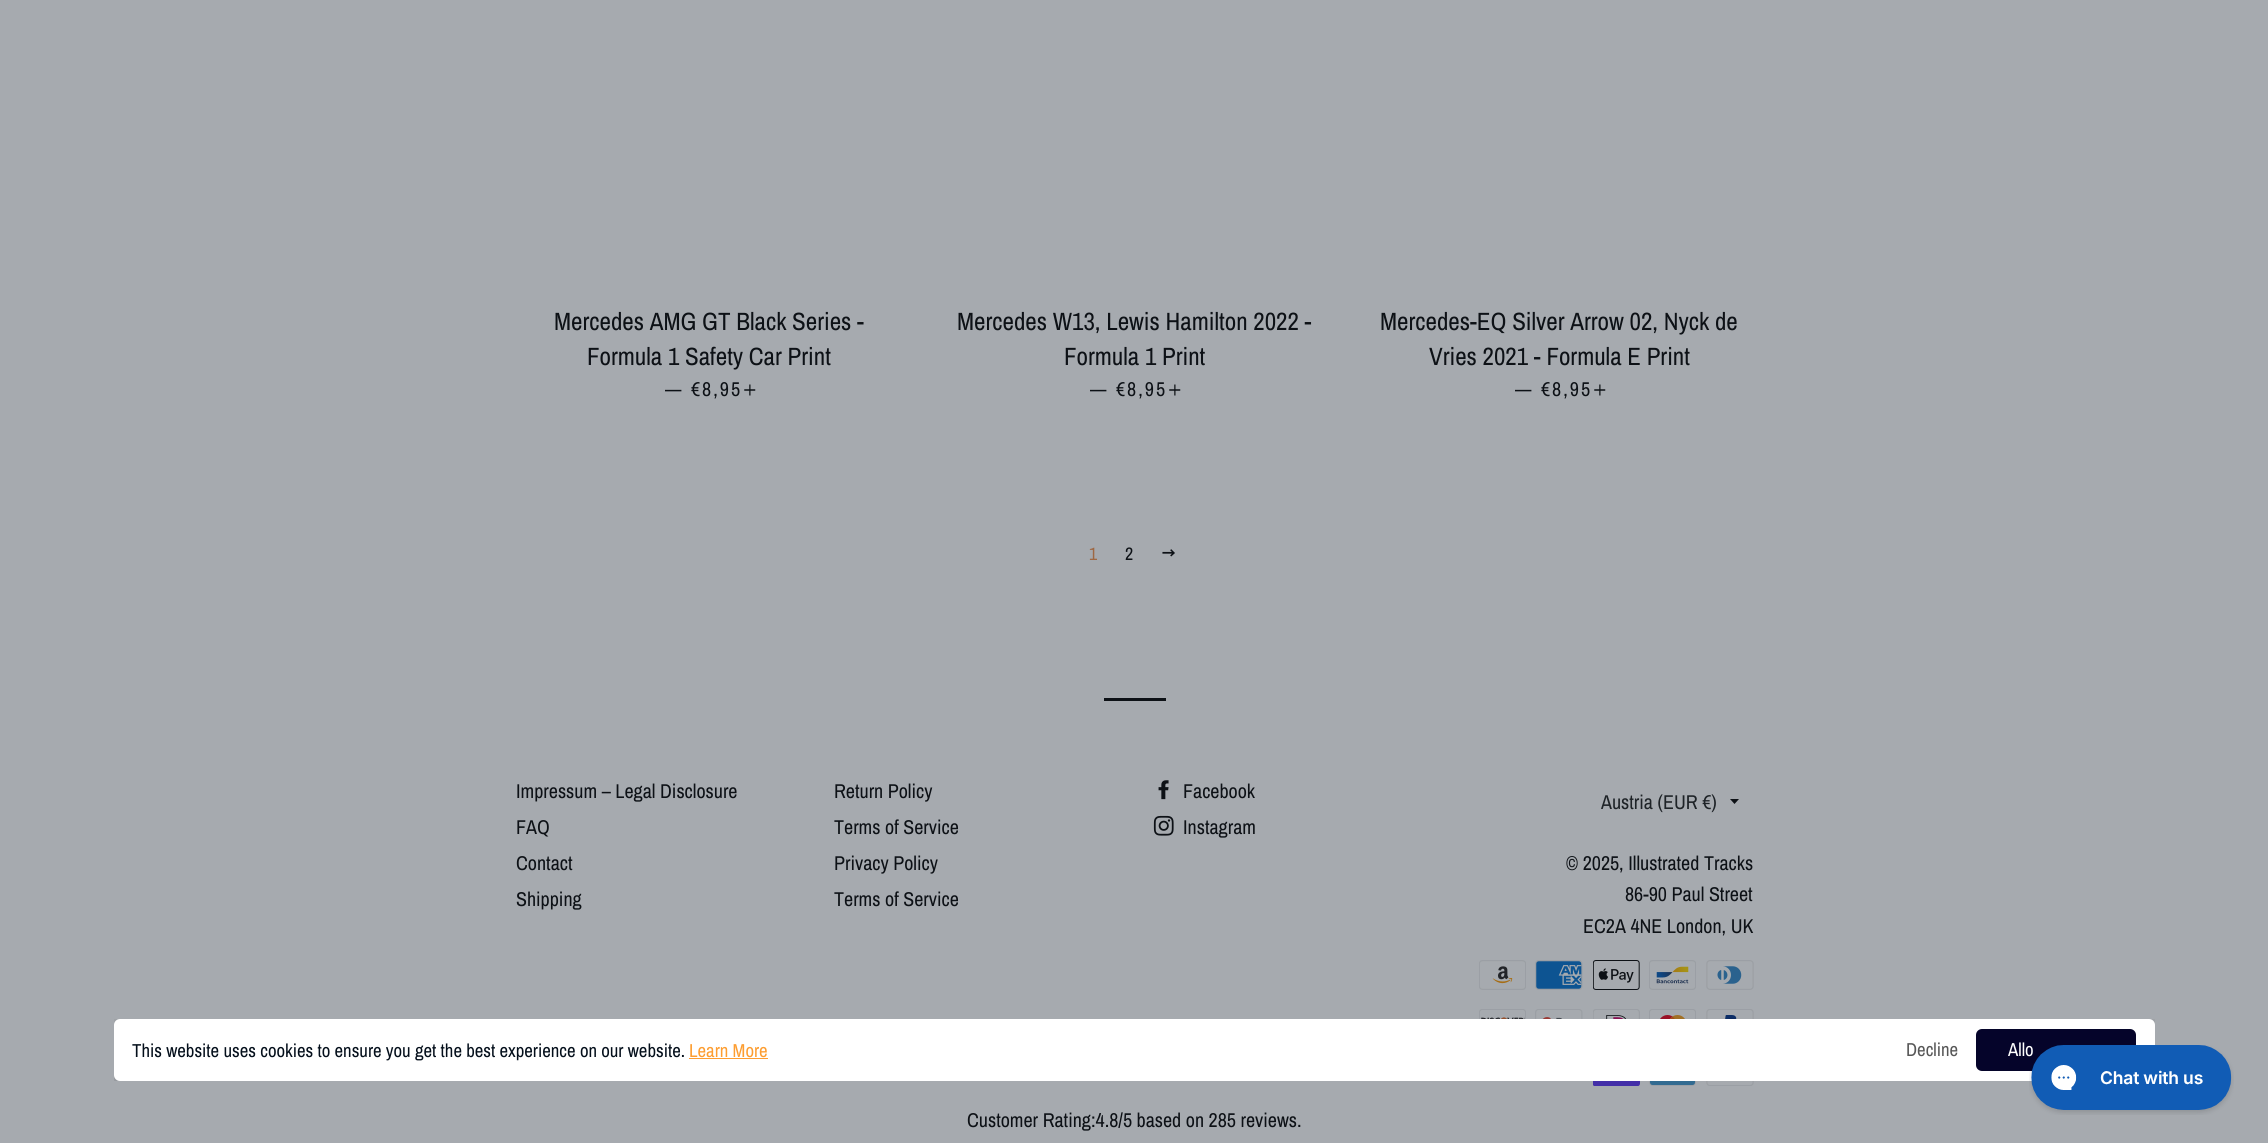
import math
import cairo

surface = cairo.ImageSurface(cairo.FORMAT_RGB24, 2268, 1143)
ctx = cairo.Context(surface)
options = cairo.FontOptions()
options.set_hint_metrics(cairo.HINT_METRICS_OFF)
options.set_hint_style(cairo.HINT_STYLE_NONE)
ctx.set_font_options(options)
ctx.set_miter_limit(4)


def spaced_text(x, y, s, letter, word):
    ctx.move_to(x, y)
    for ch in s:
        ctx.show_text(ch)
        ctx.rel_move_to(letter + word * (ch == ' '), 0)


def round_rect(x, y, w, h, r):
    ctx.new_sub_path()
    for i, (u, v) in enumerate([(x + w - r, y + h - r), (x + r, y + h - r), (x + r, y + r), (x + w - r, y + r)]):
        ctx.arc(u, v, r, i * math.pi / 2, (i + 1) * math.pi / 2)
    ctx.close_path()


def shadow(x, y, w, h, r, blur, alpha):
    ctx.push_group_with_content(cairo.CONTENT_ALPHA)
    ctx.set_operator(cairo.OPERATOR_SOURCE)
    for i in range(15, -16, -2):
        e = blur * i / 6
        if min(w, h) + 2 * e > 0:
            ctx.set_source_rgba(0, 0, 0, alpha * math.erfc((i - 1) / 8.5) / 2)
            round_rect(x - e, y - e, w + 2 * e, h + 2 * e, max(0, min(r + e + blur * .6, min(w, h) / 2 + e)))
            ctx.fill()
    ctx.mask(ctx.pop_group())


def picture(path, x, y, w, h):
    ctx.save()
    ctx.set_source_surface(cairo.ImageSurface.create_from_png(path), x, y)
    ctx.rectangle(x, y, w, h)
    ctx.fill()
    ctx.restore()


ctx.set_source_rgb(0.651, 0.667, 0.686)
ctx.paint()
ctx.select_font_face("Archivo Narrow")
ctx.set_font_size(25)
ctx.set_source_rgb(0.051, 0.067, 0.086)
ctx.move_to(554, 330)
ctx.show_text("Mercedes AMG GT Black Series -")
ctx.move_to(587, 365)
ctx.show_text("Formula 1 Safety Car Print")
ctx.set_font_size(20)
ctx.move_to(665, 396)
ctx.show_text("—")
spaced_text(691, 396, "€8,95", 2, 0)
picture("img1.png", 744, 384, 12, 12)
ctx.set_font_size(25)
ctx.move_to(957, 330)
ctx.show_text("Mercedes W13, Lewis Hamilton 2022 -")
ctx.move_to(1064, 365)
ctx.show_text("Formula 1 Print")
ctx.set_font_size(20)
ctx.move_to(1090, 396)
ctx.show_text("—")
spaced_text(1116, 396, "€8,95", 2, 0)
picture("img1.png", 1169, 384, 12, 12)
ctx.set_font_size(25)
ctx.move_to(1380, 330)
ctx.show_text("Mercedes-EQ Silver Arrow 02, Nyck de")
ctx.move_to(1429, 365)
ctx.show_text("Vries 2021 - Formula E Print")
ctx.set_font_size(20)
ctx.move_to(1515, 396)
ctx.show_text("—")
spaced_text(1541, 396, "€8,95", 2, 0)
picture("img1.png", 1594, 384, 12, 12)
ctx.set_font_size(18)
ctx.set_source_rgb(0.62, 0.408, 0.267)
spaced_text(1089, 560, "1", 2, 0)
ctx.set_source_rgb(0.051, 0.067, 0.086)
spaced_text(1125, 560, "2", 2, 0)
picture("img2.png", 1162, 549, 13, 8)
ctx.rectangle(1104, 698, 62, 3)
ctx.fill()
ctx.set_font_size(20)
ctx.move_to(516, 798)
ctx.show_text("Impressum – Legal Disclosure")
ctx.move_to(516, 834)
ctx.show_text("FAQ")
ctx.move_to(516, 870)
ctx.show_text("Contact")
ctx.move_to(516, 906)
ctx.show_text("Shipping")
ctx.move_to(834, 798)
ctx.show_text("Return Policy")
ctx.move_to(834, 834)
ctx.show_text("Terms of Service")
ctx.move_to(834, 870)
ctx.show_text("Privacy Policy")
ctx.move_to(834, 906)
ctx.show_text("Terms of Service")
picture("img3.png", 1158, 780, 11, 20)
ctx.move_to(1183, 798)
ctx.show_text("Facebook")
picture("img4.png", 1153, 815, 21, 21)
ctx.move_to(1183, 834)
ctx.show_text("Instagram")
ctx.new_path()
ctx.move_to(1730, 799)
ctx.line_to(1734.5, 804)
ctx.line_to(1739, 799)
ctx.close_path()
ctx.fill()
ctx.set_source_rgb(0.118, 0.137, 0.153)
ctx.move_to(1601, 809)
ctx.show_text("Austria (EUR €)")
ctx.set_source_rgb(0.051, 0.067, 0.086)
ctx.move_to(1566, 870)
ctx.show_text("© 2025, Illustrated Tracks")
ctx.move_to(1625, 901)
ctx.show_text("86-90 Paul Street")
ctx.move_to(1583, 933)
ctx.show_text("EC2A 4NE London, UK")
picture("img5.png", 1479, 960, 47, 30)
picture("img6.png", 1535, 960, 48, 30)
picture("img7.png", 1593, 960, 47, 30)
picture("img8.png", 1649, 960, 47, 30)
picture("img9.png", 1706, 960, 48, 30)
picture("img10.png", 1479, 1009, 47, 10)
picture("img11.png", 1535, 1009, 48, 10)
picture("img12.png", 1593, 1009, 47, 10)
picture("img13.png", 1649, 1009, 47, 10)
picture("img14.png", 1706, 1009, 48, 10)
picture("img15.png", 1593, 1081, 47, 5)
picture("img16.png", 1649, 1081, 47, 5)
picture("img17.png", 1706, 1081, 48, 5)
ctx.move_to(967, 1127)
ctx.show_text("Customer Rating:4.8/5 based on 285 reviews.")
ctx.save()
ctx.rectangle(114, 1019, 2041, 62)
ctx.clip()
ctx.set_source_rgb(0, 0, 0)
shadow(114, 1021, 2041, 63, 6, 6, 0.2)
ctx.restore()
ctx.set_source_rgb(1, 1, 1)
round_rect(114, 1019, 2041, 62, 6)
ctx.fill()
ctx.set_font_size(18.75)
ctx.set_source_rgb(0.016, 0.059, 0.106)
ctx.move_to(132, 1057)
ctx.show_text("This website uses cookies to ensure you get the best experience on our website.")
ctx.set_source_rgb(0.992, 0.616, 0.188)
ctx.move_to(689, 1057)
ctx.show_text("Learn More")
ctx.rectangle(689, 1058, 79, 1)
ctx.fill()
ctx.set_source_rgb(0.341, 0.341, 0.341)
ctx.move_to(1906, 1056)
ctx.show_text("Decline")
ctx.set_source_rgb(0.02, 0.016, 0.165)
round_rect(1976, 1029, 160, 42, 6)
ctx.fill()
ctx.set_source_rgb(1, 1, 1)
ctx.move_to(2008, 1056)
ctx.show_text("Allo")
picture("img18.png", 2029, 1045, 205, 70)
surface.write_to_png("page.png")
